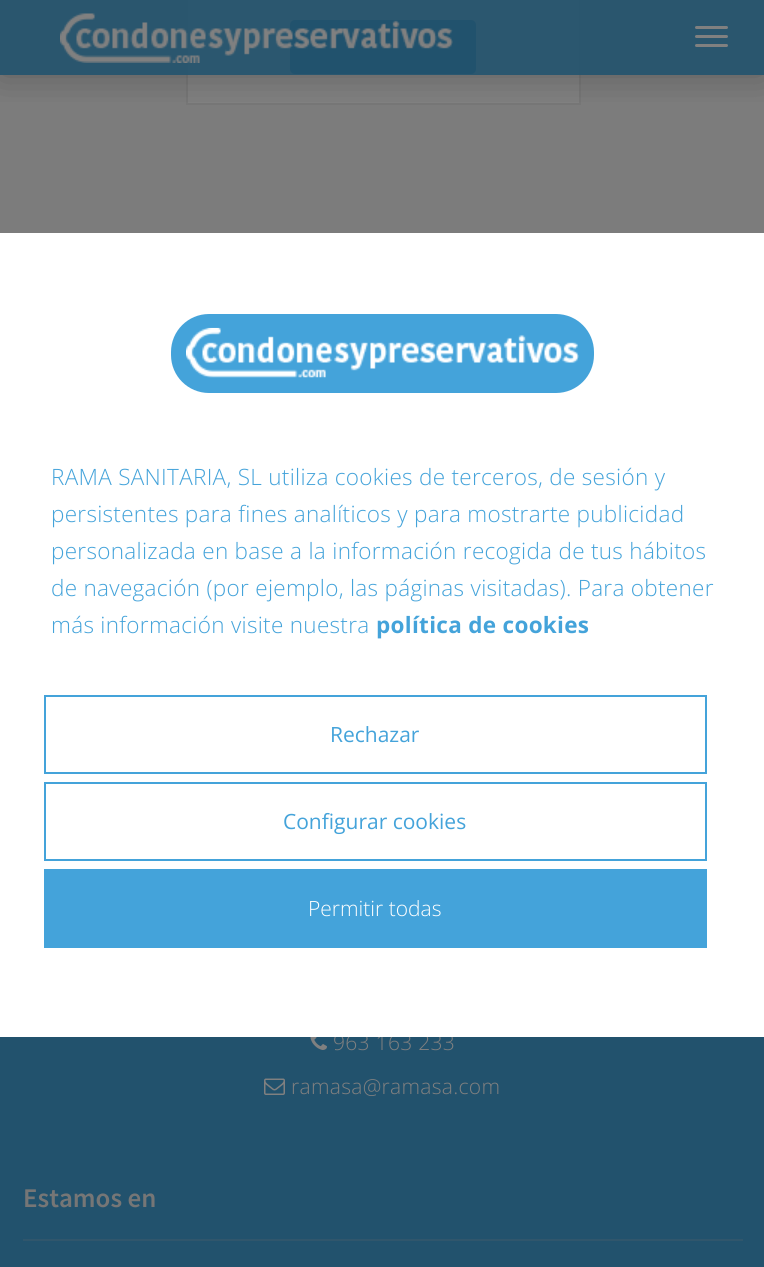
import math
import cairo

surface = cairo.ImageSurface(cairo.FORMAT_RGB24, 764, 1267)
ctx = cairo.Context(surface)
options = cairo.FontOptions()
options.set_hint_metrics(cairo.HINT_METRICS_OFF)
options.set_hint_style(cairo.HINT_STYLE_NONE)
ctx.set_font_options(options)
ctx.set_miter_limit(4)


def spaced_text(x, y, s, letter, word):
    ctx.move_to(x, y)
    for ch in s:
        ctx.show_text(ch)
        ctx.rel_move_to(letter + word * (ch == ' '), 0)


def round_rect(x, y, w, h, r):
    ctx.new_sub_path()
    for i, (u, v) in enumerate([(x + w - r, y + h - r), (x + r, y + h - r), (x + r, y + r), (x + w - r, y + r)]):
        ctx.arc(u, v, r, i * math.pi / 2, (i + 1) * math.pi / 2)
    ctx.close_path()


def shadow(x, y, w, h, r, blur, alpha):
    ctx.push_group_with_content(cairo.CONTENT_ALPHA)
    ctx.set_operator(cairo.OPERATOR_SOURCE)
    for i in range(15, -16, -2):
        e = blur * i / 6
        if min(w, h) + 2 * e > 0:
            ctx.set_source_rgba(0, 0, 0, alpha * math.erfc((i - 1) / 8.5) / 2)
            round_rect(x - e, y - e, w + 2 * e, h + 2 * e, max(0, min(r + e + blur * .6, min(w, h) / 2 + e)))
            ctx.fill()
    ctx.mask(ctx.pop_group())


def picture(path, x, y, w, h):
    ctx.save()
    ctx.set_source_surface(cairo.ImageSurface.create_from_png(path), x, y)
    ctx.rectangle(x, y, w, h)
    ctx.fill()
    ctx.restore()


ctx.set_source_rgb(0.486, 0.486, 0.486)
ctx.paint()
ctx.set_source_rgb(0.502, 0.502, 0.502)
ctx.rectangle(187, -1, 393, 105)
ctx.fill_preserve()
ctx.set_source_rgb(0.463, 0.463, 0.463)
ctx.stroke()
ctx.set_source_rgb(0.133, 0.322, 0.427)
round_rect(290, 20, 186, 54, 5)
ctx.fill()
ctx.save()
ctx.rectangle(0, 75, 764, 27)
ctx.clip()
ctx.set_source_rgb(0, 0, 0)
shadow(0, 0, 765, 75, 0, 19, 0.25)
ctx.restore()
ctx.set_source_rgba(0.133, 0.322, 0.427, 0.9)
ctx.rectangle(0, 0, 764, 75)
ctx.fill()
picture("img1.png", 60, 13, 393, 50)
ctx.set_source_rgb(0.502, 0.502, 0.502)
round_rect(695, 26, 33, 3, 1.5)
ctx.fill()
round_rect(695, 35, 33, 3, 1.5)
ctx.fill()
round_rect(695, 44, 33, 3, 1.5)
ctx.fill()
ctx.set_source_rgb(0.133, 0.322, 0.427)
ctx.rectangle(0, 1037, 764, 230)
ctx.fill()
ctx.select_font_face("Open Sans Light")
ctx.set_font_size(21)
ctx.set_source_rgb(0.502, 0.502, 0.502)
spaced_text(333, 1050, "963 163 233", 0.3, 0)
ctx.set_source_rgb(1, 1, 1)
ctx.rectangle(0, 233, 764, 804)
ctx.fill()
ctx.set_source_rgb(0.267, 0.639, 0.855)
round_rect(171, 314, 423, 79, 38)
ctx.fill()
picture("img2.png", 186, 327, 393, 51)
ctx.set_font_size(22.5)
spaced_text(51, 485, "RAMA SANITARIA, SL utiliza cookies de terceros, de sesión y", 0.3, 0)
spaced_text(51, 522, "persistentes para fines analíticos y para mostrarte publicidad", 0.3, 0)
spaced_text(51, 559, "personalizada en base a la información recogida de tus hábitos", 0.3, 0)
spaced_text(51, 596, "de navegación (por ejemplo, las páginas visitadas). Para obtener", 0.3, 0)
spaced_text(51, 633, "más información visite nuestra", 0.3, 0)
ctx.select_font_face("Open Sans", cairo.FONT_SLANT_NORMAL, cairo.FONT_WEIGHT_BOLD)
spaced_text(376, 633, "política de cookies", 0.3, 0)
ctx.rectangle(45, 696, 661, 77)
ctx.stroke()
ctx.select_font_face("Open Sans")
ctx.set_font_size(21)
ctx.move_to(330, 742)
ctx.show_text("Rechazar")
ctx.rectangle(45, 783, 661, 77)
ctx.stroke()
ctx.move_to(283, 829)
ctx.show_text("Configurar cookies")
ctx.rectangle(44, 869, 663, 79)
ctx.fill()
ctx.select_font_face("Open Sans Light")
ctx.set_source_rgb(1, 1, 1)
ctx.move_to(308, 916)
ctx.show_text("Permitir todas")
picture("img3.png", 310, 1037, 17, 13)
picture("img4.png", 264, 1078, 21, 17)
ctx.set_source_rgb(0.502, 0.502, 0.502)
spaced_text(291, 1094, "ramasa@ramasa.com", 0.3, 0)
ctx.set_source_rgb(0.188, 0.337, 0.424)
ctx.rectangle(23, 1239, 720, 2)
ctx.fill()
ctx.select_font_face("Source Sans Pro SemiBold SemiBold")
ctx.set_font_size(27)
ctx.set_source_rgb(0.463, 0.463, 0.463)
ctx.move_to(23, 1207)
ctx.show_text("Estamos en")
surface.write_to_png("page.png")
